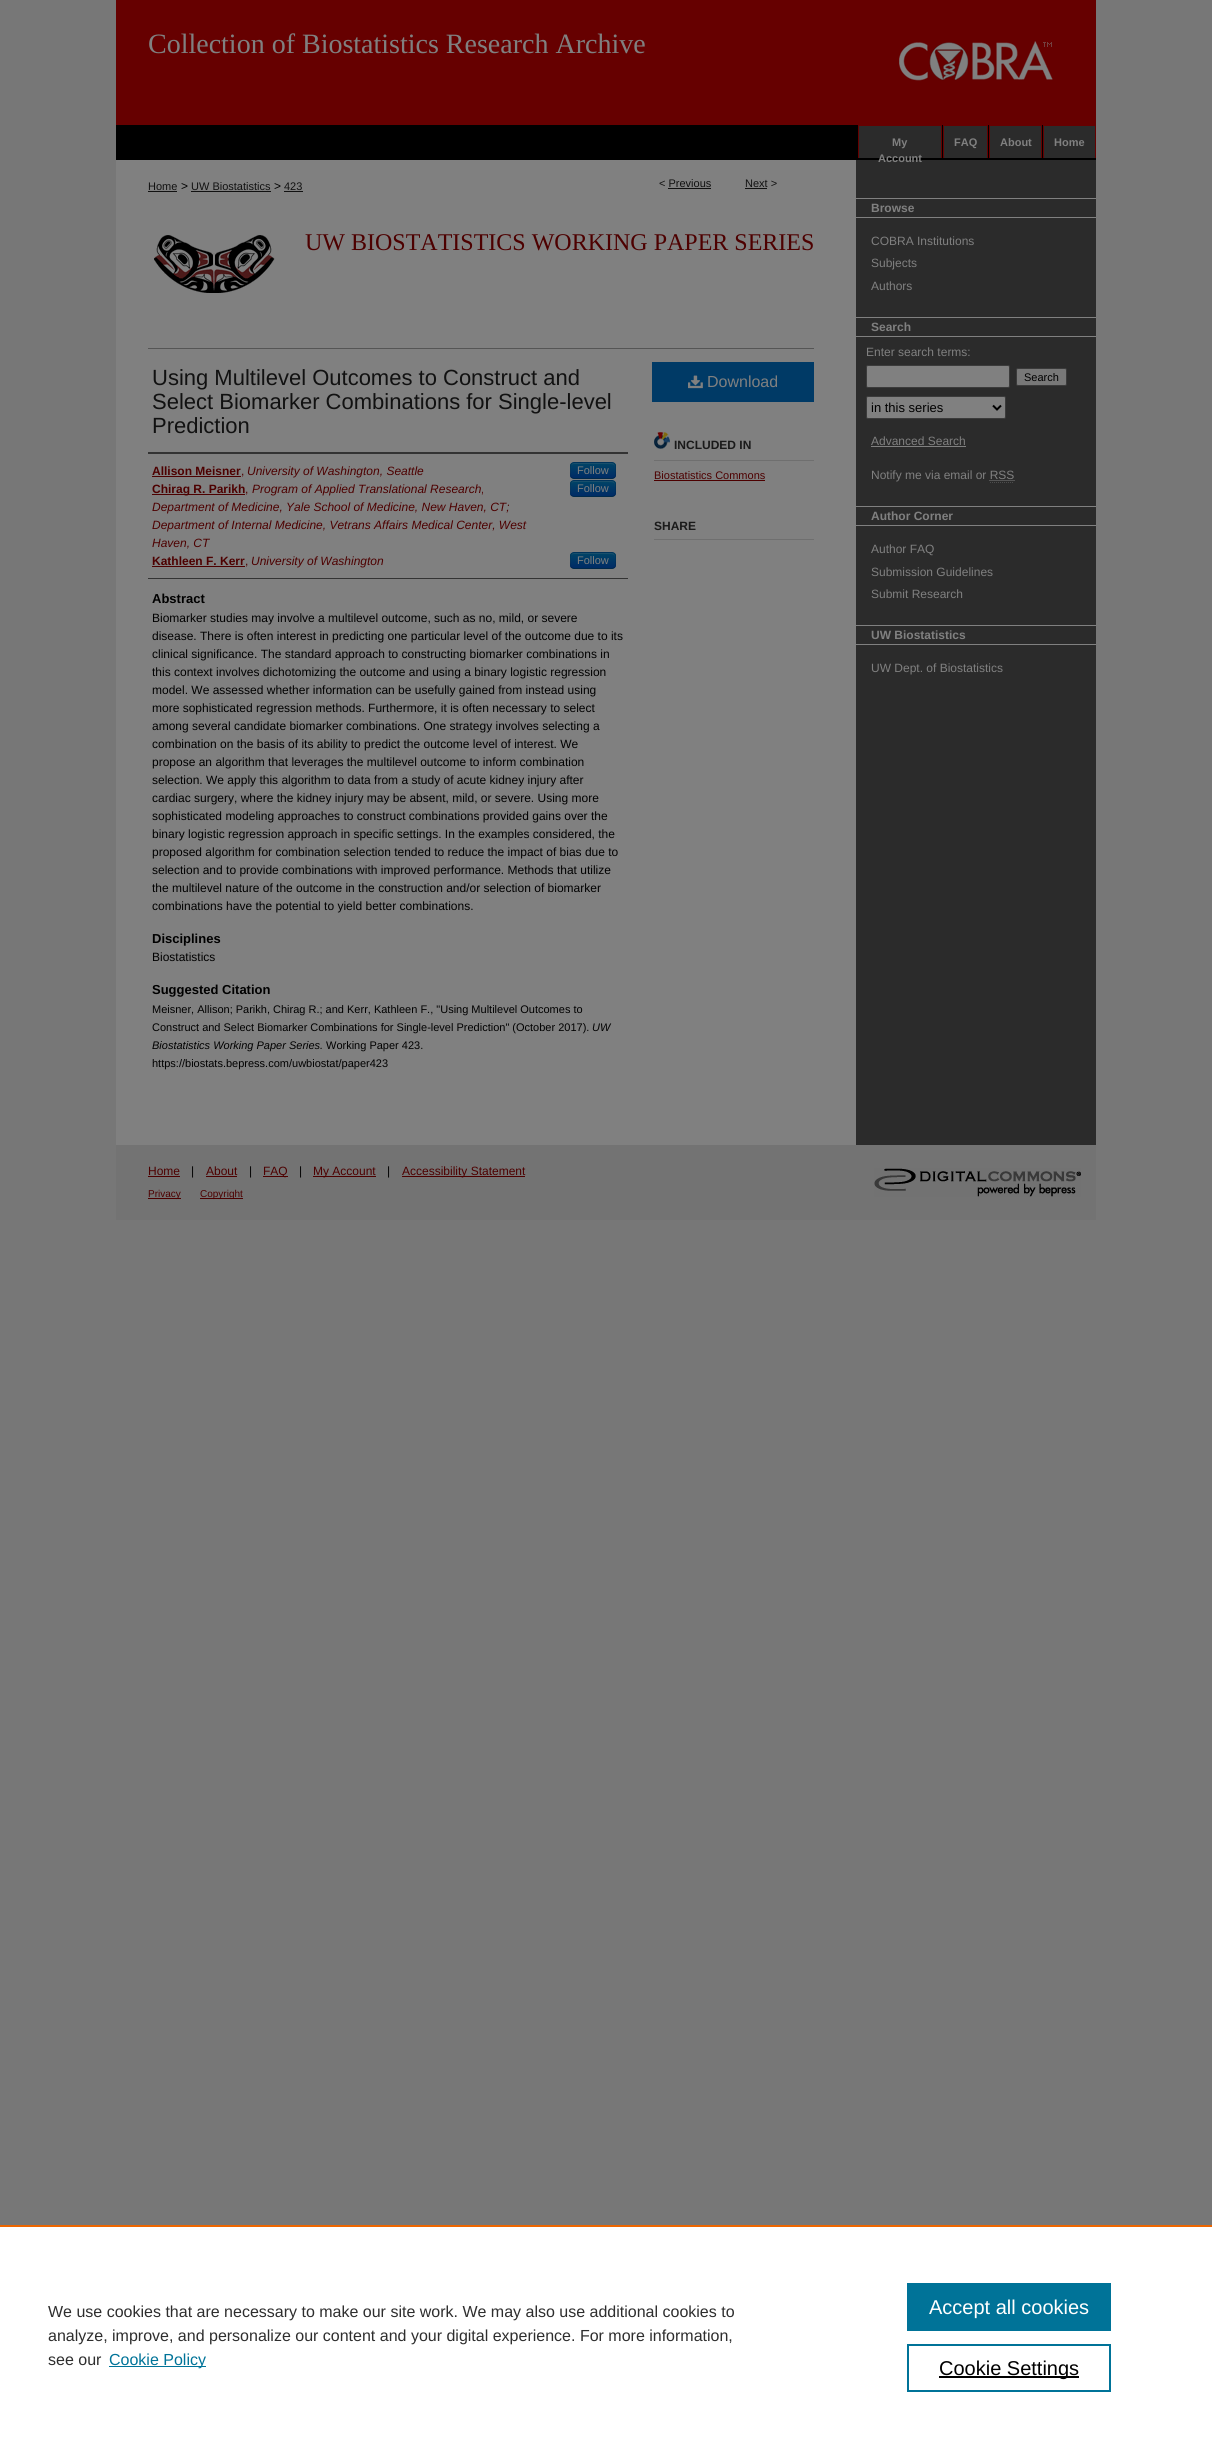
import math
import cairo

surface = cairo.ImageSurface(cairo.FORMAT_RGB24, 1212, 2445)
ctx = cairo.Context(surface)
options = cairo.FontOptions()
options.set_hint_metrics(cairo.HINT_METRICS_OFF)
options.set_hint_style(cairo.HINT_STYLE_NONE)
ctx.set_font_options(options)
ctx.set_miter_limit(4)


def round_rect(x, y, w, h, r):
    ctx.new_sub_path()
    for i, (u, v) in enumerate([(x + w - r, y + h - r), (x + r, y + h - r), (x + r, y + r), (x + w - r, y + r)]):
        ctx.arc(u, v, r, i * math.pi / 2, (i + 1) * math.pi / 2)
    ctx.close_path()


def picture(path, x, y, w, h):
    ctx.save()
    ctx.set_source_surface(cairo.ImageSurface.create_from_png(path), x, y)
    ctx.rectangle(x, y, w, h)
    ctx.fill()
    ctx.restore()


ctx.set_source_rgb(0.467, 0.467, 0.467)
ctx.paint()
ctx.set_source_rgb(0.4, 0, 0)
ctx.rectangle(116, 0, 980, 125)
ctx.fill()
ctx.select_font_face("Liberation Serif")
ctx.set_font_size(28)
ctx.set_source_rgb(0.502, 0.502, 0.502)
ctx.move_to(148, 53)
ctx.show_text("Collection of Biostatistics Research Archive")
picture("img1.png", 899, 41, 154, 40)
ctx.set_source_rgb(0, 0, 0)
ctx.rectangle(116, 125, 980, 35)
ctx.fill()
ctx.set_source_rgb(0.169, 0.169, 0.169)
ctx.rectangle(859, 126, 82, 32)
ctx.fill()
ctx.set_source_rgb(0.4, 0, 0)
ctx.rectangle(858, 125, 84, 1)
ctx.fill()
ctx.rectangle(941, 125, 1, 33)
ctx.fill()
ctx.rectangle(858, 125, 1, 33)
ctx.fill()
ctx.select_font_face("Liberation Sans", cairo.FONT_SLANT_NORMAL, cairo.FONT_WEIGHT_BOLD)
ctx.set_font_size(11)
ctx.set_source_rgb(0.502, 0.502, 0.502)
ctx.move_to(892, 146)
ctx.show_text("My")
ctx.set_source_rgb(0.169, 0.169, 0.169)
ctx.rectangle(856, 160, 240, 985)
ctx.fill()
ctx.set_source_rgb(0.502, 0.502, 0.502)
ctx.move_to(878, 162)
ctx.show_text("Account")
ctx.set_source_rgb(0.169, 0.169, 0.169)
ctx.rectangle(944, 126, 43, 32)
ctx.fill()
ctx.set_source_rgb(0.4, 0, 0)
ctx.rectangle(943, 125, 45, 1)
ctx.fill()
ctx.rectangle(987, 125, 1, 33)
ctx.fill()
ctx.rectangle(943, 125, 1, 33)
ctx.fill()
ctx.set_source_rgb(0.502, 0.502, 0.502)
ctx.move_to(954, 146)
ctx.show_text("FAQ")
ctx.set_source_rgb(0.169, 0.169, 0.169)
ctx.rectangle(990, 126, 51, 32)
ctx.fill()
ctx.set_source_rgb(0.4, 0, 0)
ctx.rectangle(989, 125, 53, 1)
ctx.fill()
ctx.rectangle(1041, 125, 1, 33)
ctx.fill()
ctx.rectangle(989, 125, 1, 33)
ctx.fill()
ctx.set_source_rgb(0.502, 0.502, 0.502)
ctx.move_to(1000, 146)
ctx.show_text("About")
ctx.set_source_rgb(0.169, 0.169, 0.169)
ctx.rectangle(1044, 126, 51, 32)
ctx.fill()
ctx.set_source_rgb(0.4, 0, 0)
ctx.rectangle(1043, 125, 53, 1)
ctx.fill()
ctx.rectangle(1095, 125, 1, 33)
ctx.fill()
ctx.rectangle(1043, 125, 1, 33)
ctx.fill()
ctx.set_source_rgb(0.502, 0.502, 0.502)
ctx.move_to(1054, 146)
ctx.show_text("Home")
ctx.rectangle(116, 160, 740, 985)
ctx.fill()
ctx.select_font_face("Liberation Sans")
ctx.set_source_rgb(0.067, 0.067, 0.067)
ctx.move_to(148, 190)
ctx.show_text("Home")
ctx.rectangle(148, 191, 29, 1)
ctx.fill()
ctx.set_font_size(12)
ctx.set_source_rgb(0, 0, 0)
ctx.move_to(181, 190)
ctx.show_text(">")
ctx.set_font_size(11)
ctx.set_source_rgb(0.067, 0.067, 0.067)
ctx.move_to(191, 190)
ctx.show_text("UW Biostatistics")
ctx.rectangle(191, 191, 80, 1)
ctx.fill()
ctx.set_font_size(12)
ctx.set_source_rgb(0, 0, 0)
ctx.move_to(274, 190)
ctx.show_text(">")
ctx.set_font_size(11)
ctx.set_source_rgb(0.067, 0.067, 0.067)
ctx.move_to(284, 190)
ctx.show_text("423")
ctx.rectangle(284, 191, 19, 1)
ctx.fill()
ctx.move_to(659, 187)
ctx.show_text("< Previous")
ctx.rectangle(668, 188, 43, 1)
ctx.fill()
ctx.move_to(745, 187)
ctx.show_text("Next >")
ctx.rectangle(745, 188, 22, 1)
ctx.fill()
picture("img2.png", 154, 235, 121, 58)
ctx.select_font_face("Liberation Serif")
ctx.set_font_size(24)
ctx.set_source_rgb(0.302, 0, 0)
ctx.move_to(305, 250)
ctx.show_text("UW BIOSTATISTICS WORKING PAPER SERIES")
ctx.set_source_rgb(0.333, 0.333, 0.333)
ctx.rectangle(148, 348, 666, 1)
ctx.fill()
ctx.select_font_face("Liberation Sans")
ctx.set_font_size(22)
ctx.set_source_rgb(0.067, 0.067, 0.067)
ctx.move_to(152, 385)
ctx.show_text("Using Multilevel Outcomes to Construct and")
ctx.move_to(152, 409)
ctx.show_text("Select Biomarker Combinations for Single-level")
ctx.move_to(152, 433)
ctx.show_text("Prediction")
ctx.set_source_rgb(0.2, 0.2, 0.2)
ctx.rectangle(148, 452, 480, 2)
ctx.fill()
ctx.rectangle(148, 578, 480, 1)
ctx.fill()
ctx.select_font_face("Liberation Sans", cairo.FONT_SLANT_NORMAL, cairo.FONT_WEIGHT_BOLD)
ctx.set_font_size(12)
ctx.set_source_rgb(0.302, 0, 0)
ctx.move_to(152, 475)
ctx.show_text("Allison Meisner")
ctx.rectangle(152, 476, 89, 1)
ctx.fill()
ctx.select_font_face("Liberation Sans")
ctx.move_to(241, 475)
ctx.show_text(",")
ctx.select_font_face("Liberation Sans", cairo.FONT_SLANT_ITALIC)
ctx.move_to(247, 475)
ctx.show_text("University of Washington, Seattle")
ctx.set_source_rgb(0, 0.227, 0.4)
round_rect(570, 462, 46, 17, 4)
ctx.fill()
ctx.save()
round_rect(570, 462, 46, 17, 4)
ctx.clip()
gradient = cairo.LinearGradient(593, 463, 593, 478)
gradient.add_color_stop_rgba(0, 0, 0.267, 0.4, 1)
gradient.add_color_stop_rgba(1, 0, 0.169, 0.4, 1)
ctx.set_source(gradient)
ctx.rectangle(570, 463, 46, 15)
ctx.fill()
ctx.restore()
ctx.set_source_rgba(0.502, 0.502, 0.502, 0.2)
ctx.new_path()
ctx.move_to(574, 464)
ctx.line_to(607, 464)
ctx.curve_to(614, 464, 615, 464, 615, 470)
ctx.line_to(615, 476)
ctx.line_to(615, 469)
ctx.curve_to(615, 462, 613, 463, 606, 463)
ctx.line_to(580, 463)
ctx.curve_to(573, 463, 571, 462, 571, 469)
ctx.line_to(571, 477)
ctx.curve_to(571, 474, 569, 464, 574, 464)
ctx.close_path()
ctx.fill()
ctx.new_path()
ctx.move_to(614.5, 477.5)
ctx.curve_to(614, 478, 613, 478.5, 612, 478.5)
ctx.line_to(574, 478.5)
ctx.curve_to(573, 478.5, 572, 478, 571.5, 477.5)
ctx.set_source_rgba(0, 0, 0, 0.25)
ctx.set_line_width(1)
ctx.stroke()
ctx.new_path()
ctx.move_to(571.5, 477.5)
ctx.curve_to(570, 475.5, 570.5, 472.5, 570.5, 470.5)
ctx.curve_to(570.5, 461.5, 571, 462.5, 580.5, 462.5)
ctx.line_to(605.5, 462.5)
ctx.curve_to(615, 462.5, 615.5, 461.5, 615.5, 470.5)
ctx.curve_to(615.5, 472.5, 616, 475.5, 614.5, 477.5)
ctx.set_source_rgba(0, 0, 0, 0.1)
ctx.stroke()
ctx.select_font_face("Liberation Sans")
ctx.set_font_size(11)
ctx.set_source_rgb(0.502, 0.502, 0.502)
ctx.move_to(577, 474)
ctx.show_text("Follow")
ctx.set_source_rgb(0.302, 0, 0)
ctx.rectangle(152, 494, 93, 1)
ctx.fill()
ctx.select_font_face("Liberation Sans", cairo.FONT_SLANT_NORMAL, cairo.FONT_WEIGHT_BOLD)
ctx.set_font_size(12)
ctx.move_to(152, 493)
ctx.show_text("Chirag R. Parikh")
ctx.select_font_face("Liberation Sans")
ctx.move_to(245, 493)
ctx.show_text(",")
ctx.select_font_face("Liberation Sans", cairo.FONT_SLANT_ITALIC)
ctx.move_to(252, 493)
ctx.show_text("Program of Applied Translational Research,")
ctx.move_to(152, 511)
ctx.show_text("Department of Medicine, Yale School of Medicine, New Haven, CT;")
ctx.move_to(152, 529)
ctx.show_text("Department of Internal Medicine, Vetrans Affairs Medical Center, West")
ctx.move_to(152, 547)
ctx.show_text("Haven, CT")
ctx.set_source_rgb(0, 0.227, 0.4)
round_rect(570, 480, 46, 17, 4)
ctx.fill()
ctx.save()
round_rect(570, 480, 46, 17, 4)
ctx.clip()
gradient = cairo.LinearGradient(593, 481, 593, 496)
gradient.add_color_stop_rgba(0, 0, 0.267, 0.4, 1)
gradient.add_color_stop_rgba(1, 0, 0.169, 0.4, 1)
ctx.set_source(gradient)
ctx.rectangle(570, 481, 46, 15)
ctx.fill()
ctx.restore()
ctx.set_source_rgba(0.502, 0.502, 0.502, 0.2)
ctx.new_path()
ctx.move_to(574, 482)
ctx.line_to(607, 482)
ctx.curve_to(614, 482, 615, 482, 615, 488)
ctx.line_to(615, 494)
ctx.line_to(615, 487)
ctx.curve_to(615, 480, 613, 481, 606, 481)
ctx.line_to(580, 481)
ctx.curve_to(573, 481, 571, 480, 571, 487)
ctx.line_to(571, 495)
ctx.curve_to(571, 492, 569, 482, 574, 482)
ctx.close_path()
ctx.fill()
ctx.new_path()
ctx.move_to(614.5, 495.5)
ctx.curve_to(614, 496, 613, 496.5, 612, 496.5)
ctx.line_to(574, 496.5)
ctx.curve_to(573, 496.5, 572, 496, 571.5, 495.5)
ctx.set_source_rgba(0, 0, 0, 0.25)
ctx.stroke()
ctx.new_path()
ctx.move_to(571.5, 495.5)
ctx.curve_to(570, 493.5, 570.5, 490.5, 570.5, 488.5)
ctx.curve_to(570.5, 479.5, 571, 480.5, 580.5, 480.5)
ctx.line_to(605.5, 480.5)
ctx.curve_to(615, 480.5, 615.5, 479.5, 615.5, 488.5)
ctx.curve_to(615.5, 490.5, 616, 493.5, 614.5, 495.5)
ctx.set_source_rgba(0, 0, 0, 0.1)
ctx.stroke()
ctx.select_font_face("Liberation Sans")
ctx.set_font_size(11)
ctx.set_source_rgb(0.502, 0.502, 0.502)
ctx.move_to(577, 492)
ctx.show_text("Follow")
ctx.select_font_face("Liberation Sans", cairo.FONT_SLANT_NORMAL, cairo.FONT_WEIGHT_BOLD)
ctx.set_font_size(12)
ctx.set_source_rgb(0.302, 0, 0)
ctx.move_to(152, 565)
ctx.show_text("Kathleen F. Kerr")
ctx.rectangle(152, 566, 93, 1)
ctx.fill()
ctx.select_font_face("Liberation Sans")
ctx.move_to(245, 565)
ctx.show_text(",")
ctx.select_font_face("Liberation Sans", cairo.FONT_SLANT_ITALIC)
ctx.move_to(251, 565)
ctx.show_text("University of Washington")
ctx.set_source_rgb(0, 0.227, 0.4)
round_rect(570, 552, 46, 17, 4)
ctx.fill()
ctx.save()
round_rect(570, 552, 46, 17, 4)
ctx.clip()
gradient = cairo.LinearGradient(593, 553, 593, 568)
gradient.add_color_stop_rgba(0, 0, 0.267, 0.4, 1)
gradient.add_color_stop_rgba(1, 0, 0.169, 0.4, 1)
ctx.set_source(gradient)
ctx.rectangle(570, 553, 46, 15)
ctx.fill()
ctx.restore()
ctx.set_source_rgba(0.502, 0.502, 0.502, 0.2)
ctx.new_path()
ctx.move_to(574, 554)
ctx.line_to(607, 554)
ctx.curve_to(614, 554, 615, 554, 615, 560)
ctx.line_to(615, 566)
ctx.line_to(615, 559)
ctx.curve_to(615, 552, 613, 553, 606, 553)
ctx.line_to(580, 553)
ctx.curve_to(573, 553, 571, 552, 571, 559)
ctx.line_to(571, 567)
ctx.curve_to(571, 564, 569, 554, 574, 554)
ctx.close_path()
ctx.fill()
ctx.new_path()
ctx.move_to(614.5, 567.5)
ctx.curve_to(614, 568, 613, 568.5, 612, 568.5)
ctx.line_to(574, 568.5)
ctx.curve_to(573, 568.5, 572, 568, 571.5, 567.5)
ctx.set_source_rgba(0, 0, 0, 0.25)
ctx.stroke()
ctx.new_path()
ctx.move_to(571.5, 567.5)
ctx.curve_to(570, 565.5, 570.5, 562.5, 570.5, 560.5)
ctx.curve_to(570.5, 551.5, 571, 552.5, 580.5, 552.5)
ctx.line_to(605.5, 552.5)
ctx.curve_to(615, 552.5, 615.5, 551.5, 615.5, 560.5)
ctx.curve_to(615.5, 562.5, 616, 565.5, 614.5, 567.5)
ctx.set_source_rgba(0, 0, 0, 0.1)
ctx.stroke()
ctx.select_font_face("Liberation Sans")
ctx.set_font_size(11)
ctx.set_source_rgb(0.502, 0.502, 0.502)
ctx.move_to(577, 564)
ctx.show_text("Follow")
ctx.select_font_face("Liberation Sans", cairo.FONT_SLANT_NORMAL, cairo.FONT_WEIGHT_BOLD)
ctx.set_font_size(13)
ctx.set_source_rgb(0, 0, 0)
ctx.move_to(152, 603)
ctx.show_text("Abstract")
ctx.select_font_face("Liberation Sans")
ctx.set_font_size(12)
ctx.move_to(152, 622)
ctx.show_text("Biomarker studies may involve a multilevel outcome, such as no, mild, or severe")
ctx.move_to(152, 640)
ctx.show_text("disease. There is often interest in predicting one particular level of the outcome due to its")
ctx.move_to(152, 658)
ctx.show_text("clinical significance. The standard approach to constructing biomarker combinations in")
ctx.move_to(152, 676)
ctx.show_text("this context involves dichotomizing the outcome and using a binary logistic regression")
ctx.move_to(152, 694)
ctx.show_text("model. We assessed whether information can be usefully gained from instead using")
ctx.move_to(152, 712)
ctx.show_text("more sophisticated regression methods. Furthermore, it is often necessary to select")
ctx.move_to(152, 730)
ctx.show_text("among several candidate biomarker combinations. One strategy involves selecting a")
ctx.move_to(152, 748)
ctx.show_text("combination on the basis of its ability to predict the outcome level of interest. We")
ctx.move_to(152, 766)
ctx.show_text("propose an algorithm that leverages the multilevel outcome to inform combination")
ctx.move_to(152, 784)
ctx.show_text("selection. We apply this algorithm to data from a study of acute kidney injury after")
ctx.move_to(152, 802)
ctx.show_text("cardiac surgery, where the kidney injury may be absent, mild, or severe. Using more")
ctx.move_to(152, 820)
ctx.show_text("sophisticated modeling approaches to construct combinations provided gains over the")
ctx.move_to(152, 838)
ctx.show_text("binary logistic regression approach in specific settings. In the examples considered, the")
ctx.move_to(152, 856)
ctx.show_text("proposed algorithm for combination selection tended to reduce the impact of bias due to")
ctx.move_to(152, 874)
ctx.show_text("selection and to provide combinations with improved performance. Methods that utilize")
ctx.move_to(152, 892)
ctx.show_text("the multilevel nature of the outcome in the construction and/or selection of biomarker")
ctx.move_to(152, 910)
ctx.show_text("combinations have the potential to yield better combinations.")
ctx.select_font_face("Liberation Sans", cairo.FONT_SLANT_NORMAL, cairo.FONT_WEIGHT_BOLD)
ctx.set_font_size(13)
ctx.move_to(152, 943)
ctx.show_text("Disciplines")
ctx.select_font_face("Liberation Sans")
ctx.set_font_size(12)
ctx.move_to(152, 961)
ctx.show_text("Biostatistics")
ctx.select_font_face("Liberation Sans", cairo.FONT_SLANT_NORMAL, cairo.FONT_WEIGHT_BOLD)
ctx.set_font_size(13)
ctx.move_to(152, 994)
ctx.show_text("Suggested Citation")
ctx.select_font_face("Liberation Sans")
ctx.set_font_size(11)
ctx.move_to(152, 1013)
ctx.show_text("Meisner, Allison; Parikh, Chirag R.; and Kerr, Kathleen F., \"Using Multilevel Outcomes to")
ctx.move_to(152, 1031)
ctx.show_text("Construct and Select Biomarker Combinations for Single-level Prediction\" (October 2017).")
ctx.select_font_face("Liberation Sans", cairo.FONT_SLANT_ITALIC)
ctx.move_to(592, 1031)
ctx.show_text("UW")
ctx.move_to(152, 1049)
ctx.show_text("Biostatistics Working Paper Series.")
ctx.select_font_face("Liberation Sans")
ctx.move_to(326, 1049)
ctx.show_text("Working Paper 423.")
ctx.move_to(152, 1067)
ctx.show_text("https://biostats.bepress.com/uwbiostat/paper423")
ctx.set_source_rgb(0, 0.227, 0.4)
ctx.rectangle(652, 362, 162, 40)
ctx.fill()
picture("img3.png", 688, 375, 15, 14)
ctx.set_font_size(16)
ctx.set_source_rgb(0.502, 0.502, 0.502)
ctx.move_to(707, 387)
ctx.show_text("Download")
picture("img4.png", 654, 432, 16, 17)
ctx.set_source_rgb(0.435, 0.435, 0.435)
ctx.rectangle(654, 460, 160, 1)
ctx.fill()
ctx.select_font_face("Liberation Sans", cairo.FONT_SLANT_NORMAL, cairo.FONT_WEIGHT_BOLD)
ctx.set_font_size(12)
ctx.set_source_rgb(0.102, 0.102, 0.102)
ctx.move_to(674, 449)
ctx.show_text("INCLUDED IN")
ctx.select_font_face("Liberation Sans")
ctx.set_font_size(11)
ctx.set_source_rgb(0.302, 0, 0)
ctx.move_to(654, 479)
ctx.show_text("Biostatistics Commons")
ctx.rectangle(654, 480, 111, 1)
ctx.fill()
ctx.set_source_rgb(0.435, 0.435, 0.435)
ctx.rectangle(654, 539, 160, 1)
ctx.fill()
ctx.select_font_face("Liberation Sans", cairo.FONT_SLANT_NORMAL, cairo.FONT_WEIGHT_BOLD)
ctx.set_font_size(12)
ctx.set_source_rgb(0.102, 0.102, 0.102)
ctx.move_to(654, 530)
ctx.show_text("SHARE")
ctx.set_source_rgb(0.502, 0.502, 0.502)
ctx.rectangle(856, 198, 240, 1)
ctx.fill()
ctx.rectangle(856, 217, 240, 1)
ctx.fill()
ctx.move_to(871, 212)
ctx.show_text("Browse")
ctx.select_font_face("Liberation Sans")
ctx.move_to(871, 245)
ctx.show_text("COBRA Institutions")
ctx.move_to(871, 267)
ctx.show_text("Subjects")
ctx.move_to(871, 290)
ctx.show_text("Authors")
ctx.rectangle(856, 317, 240, 1)
ctx.fill()
ctx.rectangle(856, 336, 240, 1)
ctx.fill()
ctx.select_font_face("Liberation Sans", cairo.FONT_SLANT_NORMAL, cairo.FONT_WEIGHT_BOLD)
ctx.move_to(871, 331)
ctx.show_text("Search")
ctx.select_font_face("Liberation Sans")
ctx.move_to(866, 356)
ctx.show_text("Enter search terms:")
round_rect(866.5, 365.5, 143, 22, 1.5)
ctx.fill_preserve()
ctx.set_source_rgb(0.231, 0.231, 0.231)
ctx.stroke()
ctx.set_source_rgb(0.471, 0.471, 0.471)
round_rect(1016.5, 368.5, 50, 17, 1.5)
ctx.fill_preserve()
ctx.set_source_rgb(0.231, 0.231, 0.231)
ctx.stroke()
ctx.set_font_size(11)
ctx.set_source_rgb(0, 0, 0)
ctx.move_to(1024, 381)
ctx.show_text("Search")
ctx.set_source_rgb(0.502, 0.502, 0.502)
round_rect(866.5, 396.5, 139, 22, 1.5)
ctx.fill_preserve()
ctx.set_source_rgb(0.231, 0.231, 0.231)
ctx.stroke()
ctx.new_path()
ctx.move_to(993, 405.5)
ctx.line_to(997, 409.5)
ctx.line_to(1001, 405.5)
ctx.set_source_rgb(0, 0, 0)
ctx.set_line_width(2)
ctx.stroke()
ctx.set_font_size(13)
ctx.move_to(871, 412)
ctx.show_text("in this series")
ctx.set_font_size(12)
ctx.set_source_rgb(0.502, 0.502, 0.502)
ctx.move_to(871, 445)
ctx.show_text("Advanced Search")
ctx.rectangle(871, 446, 95, 1)
ctx.fill()
ctx.move_to(871, 479)
ctx.show_text("Notify me via email or RSS")
ctx.new_path()
ctx.move_to(989.5, 480.5)
ctx.line_to(1014.5, 480.5)
ctx.set_line_width(1)
ctx.set_dash([1, 1])
ctx.stroke()
ctx.new_path()
ctx.move_to(990, 482.5)
ctx.line_to(1014, 482.5)
ctx.set_source_rgb(0.302, 0.302, 0.302)
ctx.stroke()
ctx.set_source_rgb(0.502, 0.502, 0.502)
ctx.rectangle(856, 506, 240, 1)
ctx.fill()
ctx.rectangle(856, 525, 240, 1)
ctx.fill()
ctx.select_font_face("Liberation Sans", cairo.FONT_SLANT_NORMAL, cairo.FONT_WEIGHT_BOLD)
ctx.move_to(871, 520)
ctx.show_text("Author Corner")
ctx.select_font_face("Liberation Sans")
ctx.move_to(871, 553)
ctx.show_text("Author FAQ")
ctx.move_to(871, 576)
ctx.show_text("Submission Guidelines")
ctx.move_to(871, 598)
ctx.show_text("Submit Research")
ctx.rectangle(856, 625, 240, 1)
ctx.fill()
ctx.rectangle(856, 644, 240, 1)
ctx.fill()
ctx.select_font_face("Liberation Sans", cairo.FONT_SLANT_NORMAL, cairo.FONT_WEIGHT_BOLD)
ctx.move_to(871, 639)
ctx.show_text("UW Biostatistics")
ctx.select_font_face("Liberation Sans")
ctx.move_to(871, 672)
ctx.show_text("UW Dept. of Biostatistics")
ctx.set_source_rgb(0.451, 0.451, 0.451)
ctx.rectangle(116, 1145, 980, 75)
ctx.fill()
ctx.set_source_rgb(0.302, 0, 0)
ctx.move_to(148, 1175)
ctx.show_text("Home")
ctx.rectangle(148, 1176, 32, 1)
ctx.fill()
ctx.set_source_rgb(0, 0, 0)
ctx.move_to(191, 1175)
ctx.show_text("|")
ctx.set_source_rgb(0.302, 0, 0)
ctx.move_to(206, 1175)
ctx.show_text("About")
ctx.rectangle(206, 1176, 31, 1)
ctx.fill()
ctx.set_source_rgb(0, 0, 0)
ctx.move_to(249, 1175)
ctx.show_text("|")
ctx.set_source_rgb(0.302, 0, 0)
ctx.rectangle(263, 1176, 25, 1)
ctx.fill()
ctx.move_to(263, 1175)
ctx.show_text("FAQ")
ctx.set_source_rgb(0, 0, 0)
ctx.move_to(299, 1175)
ctx.show_text("|")
ctx.set_source_rgb(0.302, 0, 0)
ctx.rectangle(313, 1176, 63, 1)
ctx.fill()
ctx.move_to(313, 1175)
ctx.show_text("My Account")
ctx.set_source_rgb(0, 0, 0)
ctx.move_to(387, 1175)
ctx.show_text("|")
ctx.set_source_rgb(0.302, 0, 0)
ctx.rectangle(402, 1176, 123, 1)
ctx.fill()
ctx.move_to(402, 1175)
ctx.show_text("Accessibility Statement")
picture("img5.png", 874, 1168, 207, 29)
ctx.rectangle(148, 1198, 33, 1)
ctx.fill()
ctx.set_font_size(10)
ctx.move_to(148, 1197)
ctx.show_text("Privacy")
ctx.rectangle(200, 1198, 43, 1)
ctx.fill()
ctx.move_to(200, 1197)
ctx.show_text("Copyright")
ctx.set_source_rgb(1, 1, 1)
ctx.rectangle(0, 2227, 1212, 218)
ctx.fill()
ctx.set_source_rgb(0.922, 0.396, 0)
ctx.rectangle(0, 2225, 1212, 2)
ctx.fill()
ctx.set_font_size(16)
ctx.set_source_rgb(0.18, 0.18, 0.18)
ctx.move_to(48, 2317)
ctx.show_text("We use cookies that are necessary to make our site work. We may also use additional cookies to")
ctx.move_to(48, 2341)
ctx.show_text("analyze, improve, and personalize our content and your digital experience. For more information,")
ctx.move_to(48, 2365)
ctx.show_text("see our")
ctx.set_source_rgb(0, 0.451, 0.596)
ctx.rectangle(109, 2366, 97, 1)
ctx.fill()
ctx.move_to(109, 2365)
ctx.show_text("Cookie Policy")
ctx.rectangle(907, 2283, 204, 48)
ctx.fill()
ctx.set_font_size(20)
ctx.set_source_rgb(1, 1, 1)
ctx.move_to(929, 2314)
ctx.show_text("Accept all cookies")
ctx.rectangle(908, 2345, 202, 46)
ctx.set_source_rgb(0, 0.451, 0.596)
ctx.set_line_width(2)
ctx.set_dash([])
ctx.stroke()
ctx.set_source_rgb(0, 0, 0)
ctx.rectangle(939, 2376, 140, 2)
ctx.fill()
ctx.move_to(939, 2375)
ctx.show_text("Cookie Settings")
surface.write_to_png("page.png")
